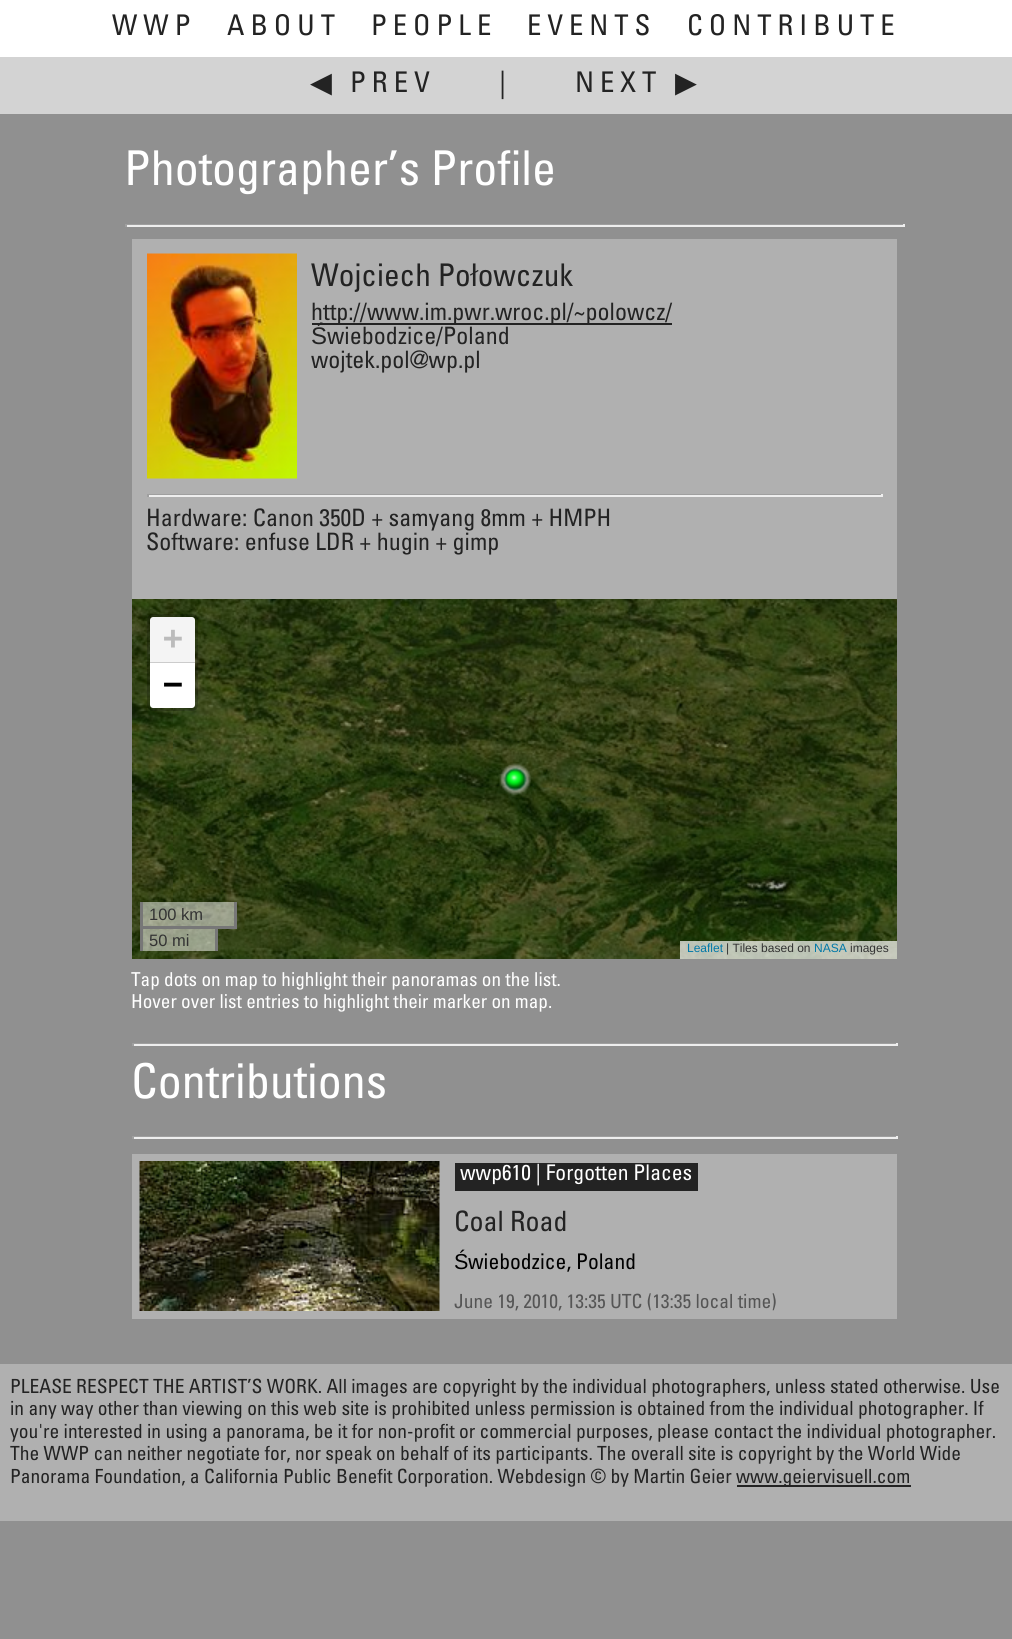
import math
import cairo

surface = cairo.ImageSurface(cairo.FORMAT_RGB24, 1012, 1639)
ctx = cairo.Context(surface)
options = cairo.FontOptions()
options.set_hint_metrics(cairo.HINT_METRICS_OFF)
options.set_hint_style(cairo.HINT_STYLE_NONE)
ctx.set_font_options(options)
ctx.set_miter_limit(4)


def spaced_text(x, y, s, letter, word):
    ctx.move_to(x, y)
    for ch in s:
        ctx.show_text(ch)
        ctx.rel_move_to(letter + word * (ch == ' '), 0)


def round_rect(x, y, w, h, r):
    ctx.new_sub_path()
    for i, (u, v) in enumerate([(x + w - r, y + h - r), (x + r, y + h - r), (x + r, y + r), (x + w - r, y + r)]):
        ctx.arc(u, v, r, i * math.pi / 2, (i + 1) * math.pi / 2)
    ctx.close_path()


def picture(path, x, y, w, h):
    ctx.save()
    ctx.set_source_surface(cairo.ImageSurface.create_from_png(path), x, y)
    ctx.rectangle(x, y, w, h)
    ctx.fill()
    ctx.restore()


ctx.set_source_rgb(0.565, 0.565, 0.565)
ctx.paint()
ctx.set_source_rgb(1, 1, 1)
ctx.rectangle(0, 0, 1012, 57)
ctx.fill()
ctx.select_font_face("Univers")
ctx.set_font_size(28.5)
ctx.set_source_rgb(0.137, 0.137, 0.137)
spaced_text(112, 35, "WWP", 6, 0)
spaced_text(227, 35, "ABOUT", 6, 0)
spaced_text(371, 35, "PEOPLE", 6, 0)
spaced_text(527, 35, "EVENTS", 6, 0)
spaced_text(687, 35, "CONTRIBUTE", 6, 0)
ctx.set_source_rgb(0.827, 0.827, 0.827)
ctx.rectangle(0, 57, 1012, 57)
ctx.fill()
ctx.select_font_face("DejaVu Sans")
ctx.set_source_rgb(0.137, 0.137, 0.137)
spaced_text(310, 92, "◀", 6, 0)
ctx.select_font_face("Univers")
spaced_text(350, 92, "PREV", 6, 0)
spaced_text(499, 92, "|", 6, 0)
spaced_text(575, 92, "NEXT", 6, 0)
ctx.select_font_face("DejaVu Sans")
spaced_text(675, 92, "▶", 6, 0)
ctx.select_font_face("Univers")
ctx.set_font_size(48)
ctx.set_source_rgb(1, 1, 1)
ctx.move_to(124, 185)
ctx.show_text("Photographer’s Profile")
ctx.set_source_rgb(0.624, 0.624, 0.624)
ctx.rectangle(125, 224, 780, 1)
ctx.fill()
ctx.set_source_rgb(0.933, 0.933, 0.933)
ctx.rectangle(903, 224, 2, 3)
ctx.fill()
ctx.rectangle(125, 225, 780, 2)
ctx.fill()
ctx.set_source_rgb(0.624, 0.624, 0.624)
ctx.rectangle(125, 224, 2, 3)
ctx.fill()
ctx.set_source_rgb(0.69, 0.69, 0.69)
ctx.rectangle(132, 239, 765, 360)
ctx.fill()
picture("img1.png", 147, 253, 150, 226)
ctx.set_font_size(31.25)
ctx.set_source_rgb(0.137, 0.137, 0.137)
ctx.move_to(311, 286)
ctx.show_text("Wojciech Połowczuk")
ctx.rectangle(312, 323, 360, 2)
ctx.fill()
ctx.set_font_size(24)
ctx.move_to(311, 320)
ctx.show_text("http://www.im.pwr.wroc.pl/~polowcz/")
ctx.select_font_face("Liberation Sans")
ctx.move_to(311, 344)
ctx.show_text("Ś")
ctx.select_font_face("Univers")
ctx.move_to(327, 344)
ctx.show_text("wiebodzice/Poland")
ctx.move_to(311, 368)
ctx.show_text("wojtek.pol@wp.pl")
ctx.set_source_rgb(0.624, 0.624, 0.624)
ctx.rectangle(147, 494, 735, 1)
ctx.fill()
ctx.set_source_rgb(0.933, 0.933, 0.933)
ctx.rectangle(881, 494, 2, 3)
ctx.fill()
ctx.rectangle(147, 495, 735, 2)
ctx.fill()
ctx.set_source_rgb(0.624, 0.624, 0.624)
ctx.rectangle(147, 494, 2, 3)
ctx.fill()
ctx.set_source_rgb(0.137, 0.137, 0.137)
ctx.move_to(146, 526)
ctx.show_text("Hardware: Canon 350D + samyang 8mm + HMPH")
ctx.move_to(146, 550)
ctx.show_text("Software: enfuse LDR + hugin + gimp")
picture("img2.png", 132, 599, 41, 189)
picture("img3.png", 173, 599, 384, 189)
picture("img6.png", 173, 787, 384, 172)
picture("img4.png", 556, 599, 341, 189)
picture("img5.png", 132, 787, 41, 172)
picture("img7.png", 556, 787, 341, 172)
picture("img8.png", 499, 763, 32, 32)
picture("img9.png", 503, 767, 24, 24)
round_rect(148.5, 615.5, 48, 94, 4.5)
ctx.set_source_rgba(0, 0, 0, 0.2)
ctx.set_line_width(3)
ctx.stroke()
ctx.set_source_rgb(0.957, 0.957, 0.957)
ctx.new_path()
ctx.move_to(153, 617)
ctx.line_to(192, 617)
ctx.curve_to(193.5, 617, 195, 618.5, 195, 620)
ctx.line_to(195, 663)
ctx.line_to(150, 663)
ctx.line_to(150, 620)
ctx.curve_to(150, 618.5, 151.5, 617, 153, 617)
ctx.close_path()
ctx.fill()
ctx.set_source_rgb(0.8, 0.8, 0.8)
ctx.rectangle(150, 662, 45, 1)
ctx.fill()
ctx.select_font_face("DejaVu Sans Mono", cairo.FONT_SLANT_NORMAL, cairo.FONT_WEIGHT_BOLD)
ctx.set_font_size(33)
ctx.set_source_rgb(0.733, 0.733, 0.733)
ctx.move_to(163, 649)
ctx.show_text("+")
ctx.set_source_rgb(1, 1, 1)
ctx.new_path()
ctx.move_to(150, 663)
ctx.line_to(195, 663)
ctx.line_to(195, 705)
ctx.curve_to(195, 706.5, 193.5, 708, 192, 708)
ctx.line_to(153, 708)
ctx.curve_to(151.5, 708, 150, 706.5, 150, 705)
ctx.close_path()
ctx.fill()
ctx.set_source_rgb(0, 0, 0)
ctx.move_to(163, 695)
ctx.show_text("−")
ctx.set_source_rgba(1, 1, 1, 0.5)
ctx.rectangle(143, 902, 91, 24)
ctx.fill()
ctx.set_source_rgb(0.467, 0.467, 0.467)
ctx.rectangle(234, 902, 3, 27)
ctx.fill()
ctx.rectangle(218, 926, 19, 3)
ctx.fill()
ctx.rectangle(140, 902, 3, 27)
ctx.fill()
ctx.select_font_face("Liberation Sans")
ctx.set_font_size(16.5)
ctx.set_source_rgb(0.2, 0.2, 0.2)
ctx.move_to(149, 920)
ctx.show_text("100 km")
ctx.set_source_rgba(1, 1, 1, 0.5)
ctx.rectangle(143, 929, 72, 22)
ctx.fill()
ctx.set_source_rgb(0.467, 0.467, 0.467)
ctx.rectangle(140, 926, 78, 3)
ctx.fill()
ctx.rectangle(215, 926, 3, 25)
ctx.fill()
ctx.rectangle(140, 926, 3, 25)
ctx.fill()
ctx.set_source_rgb(0.2, 0.2, 0.2)
ctx.move_to(149, 946)
ctx.show_text("50 mi")
ctx.set_source_rgba(1, 1, 1, 0.7)
ctx.rectangle(680, 941, 217, 18)
ctx.fill()
ctx.set_font_size(12)
ctx.set_source_rgb(0, 0.471, 0.659)
ctx.move_to(687, 952)
ctx.show_text("Leaflet")
ctx.set_source_rgb(0.2, 0.2, 0.2)
ctx.move_to(726, 952)
ctx.show_text("| Tiles based on")
ctx.set_source_rgb(0, 0.471, 0.659)
ctx.move_to(814, 952)
ctx.show_text("NASA")
ctx.set_source_rgb(0.2, 0.2, 0.2)
ctx.move_to(850, 952)
ctx.show_text("images")
ctx.select_font_face("Univers")
ctx.set_font_size(19.2)
ctx.set_source_rgb(1, 1, 1)
ctx.move_to(131, 986)
ctx.show_text("Tap dots on map to highlight their panoramas on the list.")
ctx.move_to(131, 1008)
ctx.show_text("Hover over list entries to highlight their marker on map.")
ctx.set_source_rgb(0.624, 0.624, 0.624)
ctx.rectangle(132, 1043, 765, 1)
ctx.fill()
ctx.set_source_rgb(0.933, 0.933, 0.933)
ctx.rectangle(896, 1043, 2, 3)
ctx.fill()
ctx.rectangle(132, 1044, 765, 2)
ctx.fill()
ctx.set_source_rgb(0.624, 0.624, 0.624)
ctx.rectangle(132, 1043, 2, 3)
ctx.fill()
ctx.set_font_size(48)
ctx.set_source_rgb(1, 1, 1)
ctx.move_to(131, 1098)
ctx.show_text("Contributions")
ctx.set_source_rgb(0.624, 0.624, 0.624)
ctx.rectangle(132, 1136, 765, 1)
ctx.fill()
ctx.set_source_rgb(0.933, 0.933, 0.933)
ctx.rectangle(896, 1136, 2, 3)
ctx.fill()
ctx.rectangle(132, 1137, 765, 2)
ctx.fill()
ctx.set_source_rgb(0.624, 0.624, 0.624)
ctx.rectangle(132, 1136, 2, 3)
ctx.fill()
ctx.set_source_rgb(0.69, 0.69, 0.69)
ctx.rectangle(132, 1154, 765, 165)
ctx.fill()
picture("img10.png", 139, 1161, 301, 150)
ctx.set_source_rgb(0.137, 0.137, 0.137)
ctx.rectangle(455, 1163, 243, 28)
ctx.fill()
ctx.set_font_size(21.6)
ctx.set_source_rgb(1, 1, 1)
ctx.move_to(460, 1180)
ctx.show_text("wwp610 | Forgotten Places")
ctx.set_font_size(28)
ctx.set_source_rgb(0.137, 0.137, 0.137)
ctx.move_to(454, 1231)
ctx.show_text("Coal Road")
ctx.select_font_face("Liberation Sans")
ctx.set_font_size(21.6)
ctx.set_source_rgb(0, 0, 0)
ctx.move_to(454, 1269)
ctx.show_text("Ś")
ctx.select_font_face("Univers")
ctx.move_to(468, 1269)
ctx.show_text("wiebodzice, Poland")
ctx.set_font_size(19.5)
ctx.set_source_rgb(0.333, 0.333, 0.333)
ctx.move_to(454, 1308)
ctx.show_text("June 19, 2010, 13:35 UTC (13:35 local time)")
ctx.set_source_rgb(0.69, 0.69, 0.69)
ctx.rectangle(0, 1364, 1012, 157)
ctx.fill()
ctx.set_source_rgb(0.137, 0.137, 0.137)
ctx.move_to(10, 1393)
ctx.show_text("PLEASE RESPECT THE ARTIST’S WORK. All images are copyright by the individual photographers, unless stated otherwise. Use")
ctx.move_to(10, 1415)
ctx.show_text("in any way other than viewing on this web site is prohibited unless permission is obtained from the individual photographer. If")
ctx.move_to(10, 1438)
ctx.show_text("you're interested in using a panorama, be it for non-profit or commercial purposes, please contact the individual photographer.")
ctx.move_to(10, 1460)
ctx.show_text("The WWP can neither negotiate for, nor speak on behalf of its participants. The overall site is copyright by the World Wide")
ctx.move_to(10, 1483)
ctx.show_text("Panorama Foundation, a California Public Benefit Corporation. Webdesign © by Martin Geier")
ctx.rectangle(737, 1485, 174, 2)
ctx.fill()
ctx.move_to(736, 1483)
ctx.show_text("www.geiervisuell.com")
surface.write_to_png("page.png")
